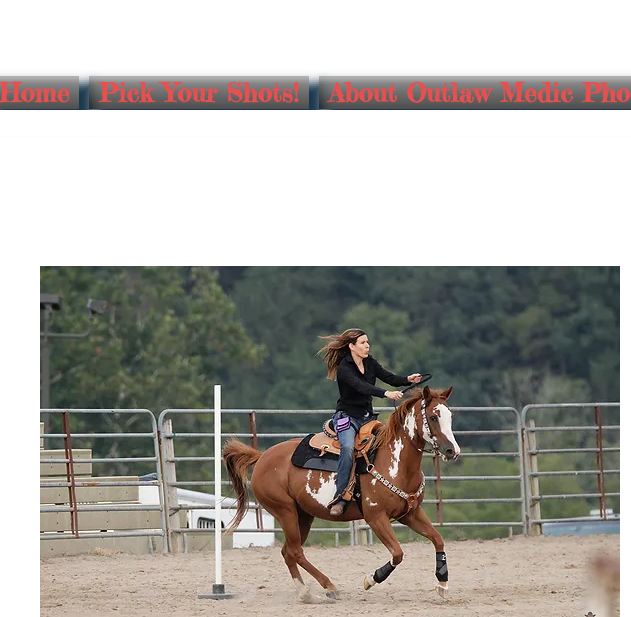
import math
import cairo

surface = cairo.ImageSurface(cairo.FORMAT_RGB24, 631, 617)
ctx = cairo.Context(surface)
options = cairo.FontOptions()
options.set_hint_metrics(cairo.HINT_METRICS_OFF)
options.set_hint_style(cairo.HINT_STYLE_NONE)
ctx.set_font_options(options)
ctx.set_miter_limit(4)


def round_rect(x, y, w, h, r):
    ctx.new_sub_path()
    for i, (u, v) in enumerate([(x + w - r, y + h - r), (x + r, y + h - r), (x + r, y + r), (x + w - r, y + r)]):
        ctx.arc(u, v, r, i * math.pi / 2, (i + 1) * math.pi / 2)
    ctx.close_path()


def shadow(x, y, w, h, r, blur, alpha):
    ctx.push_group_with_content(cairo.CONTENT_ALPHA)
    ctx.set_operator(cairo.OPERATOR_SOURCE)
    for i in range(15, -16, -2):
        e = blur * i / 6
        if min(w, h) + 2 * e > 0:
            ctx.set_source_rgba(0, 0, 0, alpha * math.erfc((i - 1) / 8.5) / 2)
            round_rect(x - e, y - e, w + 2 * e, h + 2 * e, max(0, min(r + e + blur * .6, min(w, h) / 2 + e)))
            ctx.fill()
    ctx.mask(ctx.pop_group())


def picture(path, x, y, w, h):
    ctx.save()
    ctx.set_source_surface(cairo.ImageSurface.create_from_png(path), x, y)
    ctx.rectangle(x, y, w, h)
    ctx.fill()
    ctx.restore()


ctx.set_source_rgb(1, 1, 1)
ctx.paint()
ctx.set_source_rgb(0.008, 0.133, 0.227)
shadow(-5, 83, 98, 41, 0, 5.5, 0.91)
ctx.set_source_rgb(0.302, 0.302, 0.302)
ctx.rectangle(0, 76, 79, 33)
ctx.fill()
picture("img1.png", 0, 76, 79, 33)
picture("img2.png", 0, 76, 79, 33)
ctx.select_font_face("Fredericka the Great", cairo.FONT_SLANT_NORMAL, cairo.FONT_WEIGHT_BOLD)
ctx.set_font_size(26)
ctx.set_source_rgb(0.91, 0.31, 0.31)
ctx.move_to(-1, 102)
ctx.show_text("Home")
ctx.save()
ctx.set_fill_rule(cairo.FILL_RULE_EVEN_ODD)
ctx.new_path()
ctx.move_to(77, 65)
ctx.line_to(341, 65)
ctx.line_to(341, 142)
ctx.line_to(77, 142)
ctx.close_path()
ctx.move_to(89, 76)
ctx.line_to(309, 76)
ctx.line_to(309, 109)
ctx.line_to(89, 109)
ctx.close_path()
ctx.clip()
ctx.set_source_rgb(0.008, 0.133, 0.227)
shadow(95, 83, 228, 41, 0, 5.5, 0.91)
ctx.restore()
ctx.set_source_rgba(0, 0, 0, 0.7)
ctx.rectangle(89, 76, 220, 33)
ctx.fill()
picture("img3.png", 89, 76, 220, 33)
picture("img4.png", 89, 76, 220, 33)
ctx.set_source_rgb(0.91, 0.31, 0.31)
ctx.move_to(99, 102)
ctx.show_text("Pick Your Shots!")
ctx.save()
ctx.set_fill_rule(cairo.FILL_RULE_EVEN_ODD)
ctx.new_path()
ctx.move_to(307, 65)
ctx.line_to(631, 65)
ctx.line_to(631, 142)
ctx.line_to(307, 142)
ctx.close_path()
ctx.move_to(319, 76)
ctx.line_to(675, 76)
ctx.line_to(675, 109)
ctx.line_to(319, 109)
ctx.close_path()
ctx.clip()
ctx.set_source_rgb(0.008, 0.133, 0.227)
shadow(325, 83, 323, 41, 0, 5.5, 0.91)
ctx.restore()
ctx.set_source_rgba(0, 0, 0, 0.7)
ctx.rectangle(319, 76, 312, 33)
ctx.fill()
picture("img5.png", 319, 76, 312, 33)
picture("img6.png", 319, 76, 312, 33)
ctx.set_source_rgb(0.91, 0.31, 0.31)
ctx.move_to(329, 102)
ctx.show_text("About Outlaw Medic Pho")
ctx.set_source_rgb(1, 1, 1)
ctx.rectangle(0, 110, 631, 26)
ctx.fill()
picture("img7.png", 40, 266, 580, 351)
surface.write_to_png("page.png")
